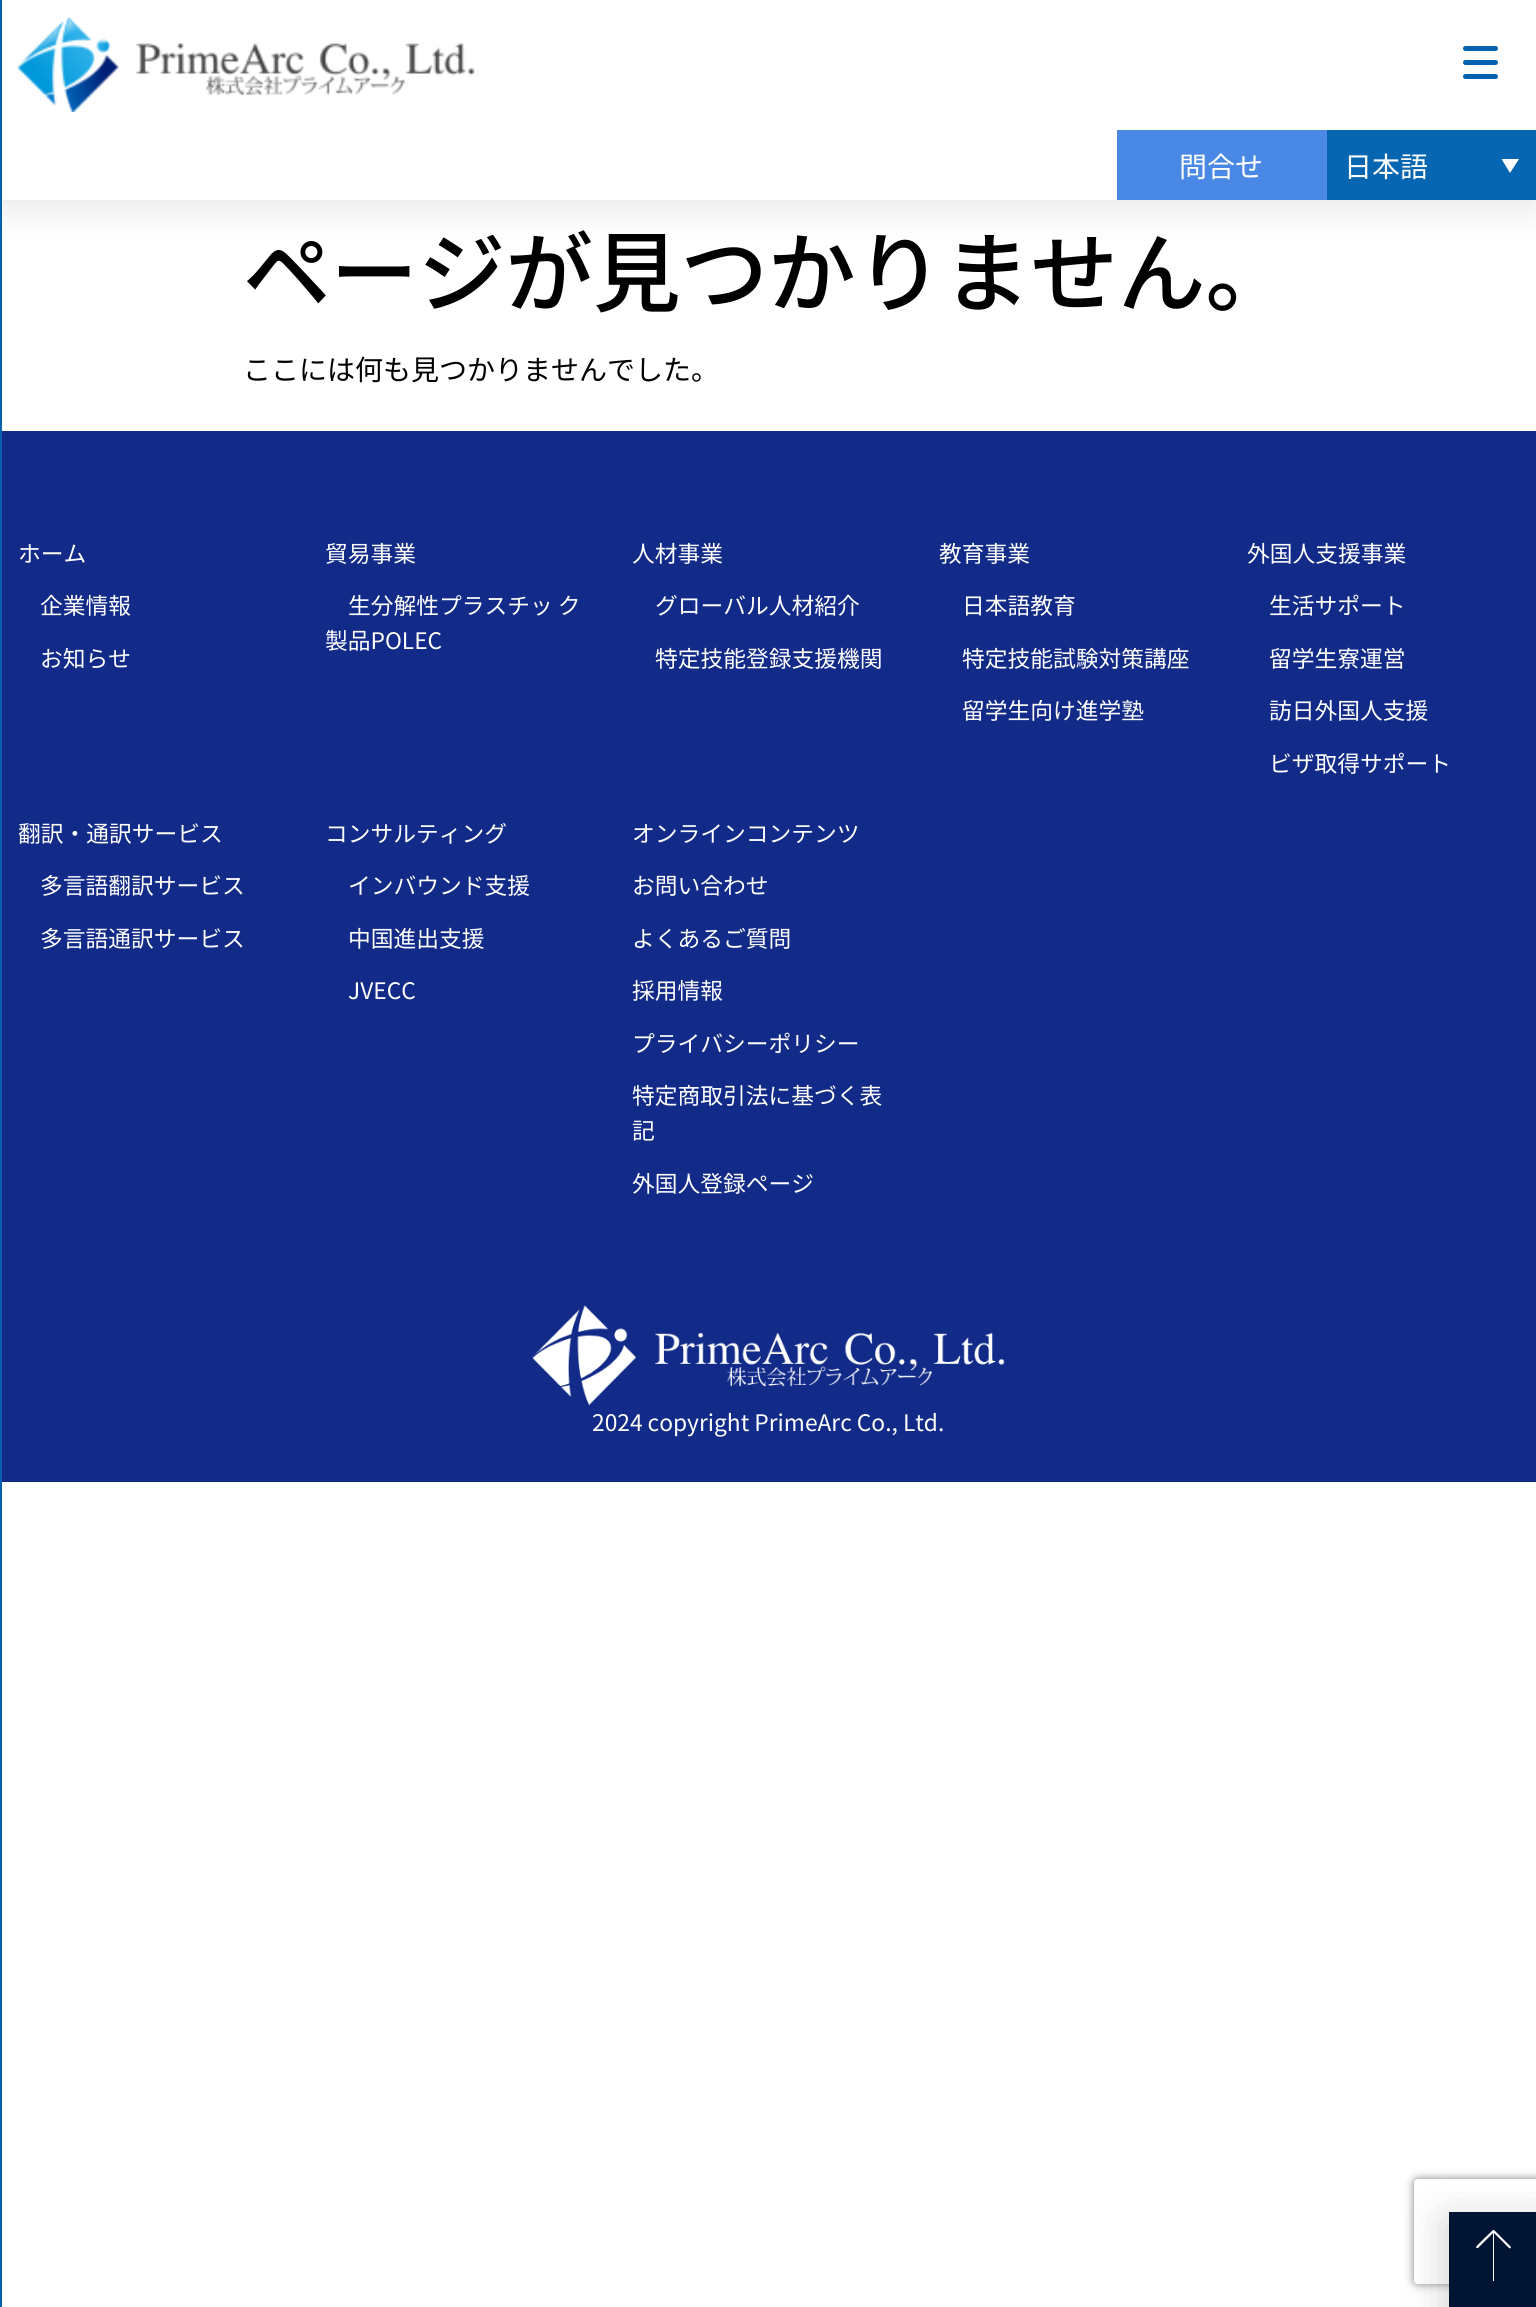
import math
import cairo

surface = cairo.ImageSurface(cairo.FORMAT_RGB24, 1536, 2307)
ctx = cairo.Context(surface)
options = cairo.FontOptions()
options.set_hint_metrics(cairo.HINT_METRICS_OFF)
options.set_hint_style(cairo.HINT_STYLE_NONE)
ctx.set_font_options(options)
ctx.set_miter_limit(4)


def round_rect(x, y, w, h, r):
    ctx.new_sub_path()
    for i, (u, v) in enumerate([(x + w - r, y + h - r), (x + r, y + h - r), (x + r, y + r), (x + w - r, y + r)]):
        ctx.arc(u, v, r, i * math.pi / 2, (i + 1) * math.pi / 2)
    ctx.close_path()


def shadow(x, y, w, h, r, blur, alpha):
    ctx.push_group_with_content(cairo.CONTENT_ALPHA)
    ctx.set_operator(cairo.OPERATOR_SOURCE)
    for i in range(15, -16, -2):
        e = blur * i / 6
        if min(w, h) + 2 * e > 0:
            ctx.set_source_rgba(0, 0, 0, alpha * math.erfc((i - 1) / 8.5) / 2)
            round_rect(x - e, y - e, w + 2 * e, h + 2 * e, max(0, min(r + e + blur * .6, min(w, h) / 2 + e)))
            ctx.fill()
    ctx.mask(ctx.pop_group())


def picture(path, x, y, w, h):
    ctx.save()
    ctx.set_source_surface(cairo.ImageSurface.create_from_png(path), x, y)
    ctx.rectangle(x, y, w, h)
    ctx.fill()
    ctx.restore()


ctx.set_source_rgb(1, 1, 1)
ctx.paint()
ctx.set_source_rgb(0, 0, 0)
shadow(0, 9, 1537, 199, 0, 17.5, 0.1)
ctx.set_source_rgb(0, 0.38, 0.69)
ctx.rectangle(0, 0, 2, 2307)
ctx.fill()
ctx.set_source_rgb(1, 1, 1)
ctx.rectangle(2, 0, 1534, 200)
ctx.fill()
ctx.set_source_rgb(0, 0.38, 0.69)
round_rect(1463, 60, 35, 5, 2.5)
ctx.fill()
round_rect(1463, 46, 35, 5, 2.5)
ctx.fill()
round_rect(1463, 74, 35, 5, 2.5)
ctx.fill()
picture("img1.png", 17, 17, 458, 95)
ctx.set_source_rgb(0.286, 0.533, 0.898)
ctx.rectangle(1117, 130, 210, 70)
ctx.fill()
ctx.select_font_face("Noto Sans JP")
ctx.set_font_size(28)
ctx.set_source_rgb(1, 1, 1)
ctx.move_to(1179, 177)
ctx.show_text("問合せ")
ctx.set_source_rgb(0.031, 0.4, 0.698)
ctx.rectangle(1327, 130, 209, 70)
ctx.fill()
ctx.set_source_rgb(1, 1, 1)
ctx.move_to(1344, 177)
ctx.show_text("日本語")
ctx.new_path()
ctx.move_to(1501.5, 159)
ctx.line_to(1519, 159)
ctx.line_to(1510, 173)
ctx.close_path()
ctx.fill()
ctx.select_font_face("Noto Sans JP Medium")
ctx.set_font_size(87.5)
ctx.set_source_rgb(0, 0, 0)
ctx.move_to(243, 305)
ctx.show_text("ページが見つかりません。")
ctx.select_font_face("Noto Sans JP")
ctx.set_font_size(28)
ctx.move_to(243, 380)
ctx.show_text("ここには何も見つかりませんでした。")
ctx.set_source_rgb(0.071, 0.165, 0.533)
ctx.rectangle(2, 431, 1534, 1051)
ctx.fill()
ctx.set_font_size(22.75)
ctx.set_source_rgb(1, 1, 1)
ctx.move_to(18, 562)
ctx.show_text("ホーム")
ctx.move_to(40, 614)
ctx.show_text("企業情報")
ctx.move_to(40, 667)
ctx.show_text("お知らせ")
ctx.move_to(325, 562)
ctx.show_text("貿易事業")
ctx.move_to(348, 614)
ctx.show_text("生分解性プラスチッ ク")
ctx.move_to(325, 649)
ctx.show_text("製品POLEC")
ctx.move_to(632, 562)
ctx.show_text("人材事業")
ctx.move_to(655, 614)
ctx.show_text("グローバル人材紹介")
ctx.move_to(655, 667)
ctx.show_text("特定技能登録支援機関")
ctx.move_to(939, 562)
ctx.show_text("教育事業")
ctx.move_to(962, 614)
ctx.show_text("日本語教育")
ctx.move_to(962, 667)
ctx.show_text("特定技能試験対策講座")
ctx.move_to(962, 719)
ctx.show_text("留学生向け進学塾")
ctx.move_to(1247, 562)
ctx.show_text("外国人支援事業")
ctx.move_to(1269, 614)
ctx.show_text("生活サポート")
ctx.move_to(1269, 667)
ctx.show_text("留学生寮運営")
ctx.move_to(1269, 719)
ctx.show_text("訪日外国人支援")
ctx.move_to(1269, 772)
ctx.show_text("ビザ取得サポート")
ctx.move_to(18, 842)
ctx.show_text("翻訳・通訳サービス")
ctx.move_to(40, 894)
ctx.show_text("多言語翻訳サービス")
ctx.move_to(40, 947)
ctx.show_text("多言語通訳サービス")
ctx.move_to(325, 842)
ctx.show_text("コンサルティング")
ctx.move_to(348, 894)
ctx.show_text("インバウンド支援")
ctx.move_to(348, 947)
ctx.show_text("中国進出支援")
ctx.move_to(348, 999)
ctx.show_text("JVECC")
ctx.move_to(632, 842)
ctx.show_text("オンラインコンテンツ")
ctx.move_to(632, 894)
ctx.show_text("お問い合わせ")
ctx.move_to(632, 947)
ctx.show_text("よくあるご質問")
ctx.move_to(632, 999)
ctx.show_text("採用情報")
ctx.move_to(632, 1052)
ctx.show_text("プライバシーポリシー")
ctx.move_to(632, 1104)
ctx.show_text("特定商取引法に基づく表")
ctx.move_to(632, 1139)
ctx.show_text("記")
ctx.move_to(632, 1192)
ctx.show_text("外国人登録ページ")
picture("img2.png", 532, 1305, 473, 101)
ctx.move_to(592, 1431)
ctx.show_text("2024 copyright PrimeArc Co., Ltd.")
ctx.set_source_rgb(0, 0, 0)
shadow(1447, 2221, 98, 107, 0, 20, 0.2)
ctx.save()
ctx.set_fill_rule(cairo.FILL_RULE_EVEN_ODD)
ctx.new_path()
ctx.move_to(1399, 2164)
ctx.line_to(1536, 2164)
ctx.line_to(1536, 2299)
ctx.line_to(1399, 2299)
ctx.close_path()
ctx.move_to(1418, 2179)
ctx.line_to(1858, 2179)
ctx.curve_to(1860, 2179, 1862, 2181, 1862, 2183)
ctx.line_to(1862, 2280)
ctx.curve_to(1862, 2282, 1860, 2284, 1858, 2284)
ctx.line_to(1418, 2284)
ctx.curve_to(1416, 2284, 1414, 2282, 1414, 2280)
ctx.line_to(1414, 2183)
ctx.curve_to(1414, 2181, 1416, 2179, 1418, 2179)
ctx.close_path()
ctx.clip()
ctx.set_source_rgb(0.502, 0.502, 0.502)
shadow(1414, 2179, 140, 105, 4, 4.5, 1)
ctx.restore()
ctx.set_source_rgb(0, 0.082, 0.2)
ctx.rectangle(1449, 2212, 87, 95)
ctx.fill()
ctx.set_source_rgb(1, 1, 1)
ctx.new_path()
ctx.move_to(1511, 2247)
ctx.line_to(1494, 2230)
ctx.line_to(1493, 2230)
ctx.curve_to(1491, 2232, 1476, 2246, 1476, 2247)
ctx.curve_to(1476, 2248, 1477, 2248, 1478, 2248)
ctx.line_to(1493, 2233)
ctx.line_to(1493, 2281)
ctx.line_to(1494, 2281)
ctx.line_to(1494, 2233)
ctx.line_to(1509, 2248)
ctx.curve_to(1510, 2249, 1511, 2248, 1511, 2247)
ctx.close_path()
ctx.fill()
surface.write_to_png("page.png")
